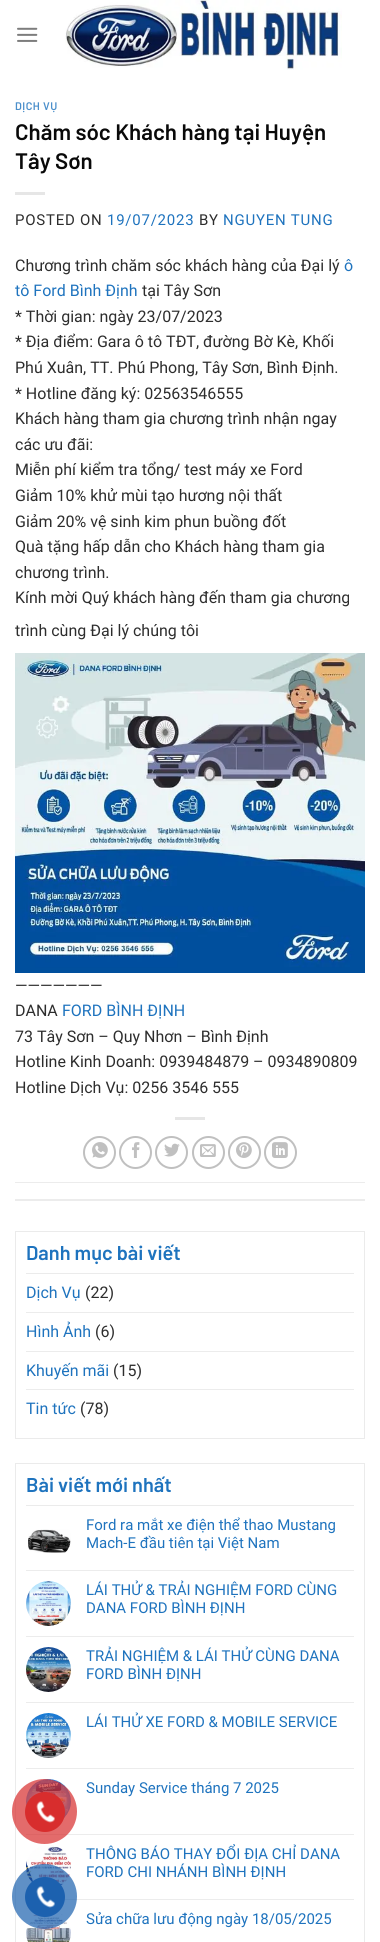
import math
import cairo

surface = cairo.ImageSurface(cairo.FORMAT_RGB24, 380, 1942)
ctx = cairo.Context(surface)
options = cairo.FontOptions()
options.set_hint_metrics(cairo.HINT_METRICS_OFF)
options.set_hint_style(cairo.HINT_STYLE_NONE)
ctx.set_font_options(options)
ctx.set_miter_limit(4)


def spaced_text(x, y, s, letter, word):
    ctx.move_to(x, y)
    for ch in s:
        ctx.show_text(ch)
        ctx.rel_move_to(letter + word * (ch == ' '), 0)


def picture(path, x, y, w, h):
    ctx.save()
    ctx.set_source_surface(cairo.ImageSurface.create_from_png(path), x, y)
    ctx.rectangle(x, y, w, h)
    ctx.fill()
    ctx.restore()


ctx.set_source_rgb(1, 1, 1)
ctx.paint()
picture("img1.png", 17, 27, 21, 15)
picture("img2.png", 65, 0, 277, 70)
ctx.select_font_face("Barlow SemiBold")
ctx.set_font_size(11)
ctx.set_source_rgb(0.294, 0.561, 0.796)
spaced_text(15, 110, "DỊCH VỤ", 0.5, 0)
ctx.set_font_size(22.4)
ctx.set_source_rgb(0.039, 0.039, 0.039)
ctx.move_to(15, 140)
ctx.show_text("Chăm sóc Khách hàng tại Huyện")
ctx.move_to(15, 169)
ctx.show_text("Tây Sơn")
ctx.set_source_rgb(0.902, 0.902, 0.902)
ctx.rectangle(15, 192, 30, 3)
ctx.fill()
ctx.select_font_face("Roboto")
ctx.set_font_size(15)
ctx.set_source_rgb(0.176, 0.176, 0.176)
spaced_text(15, 225, "POSTED ON", 0.75, 0)
ctx.set_source_rgb(0.118, 0.451, 0.745)
spaced_text(107, 225, "19/07/2023", 0.75, 0)
ctx.set_source_rgb(0.176, 0.176, 0.176)
spaced_text(199, 225, "BY", 0.75, 0)
ctx.set_source_rgb(0.118, 0.451, 0.745)
spaced_text(223, 225, "NGUYEN TUNG", 0.75, 0)
ctx.set_font_size(16)
ctx.set_source_rgb(0.176, 0.176, 0.176)
ctx.move_to(15, 271)
ctx.show_text("Chương trình chăm sóc khách hàng của Đại lý")
ctx.set_source_rgb(0.118, 0.451, 0.745)
ctx.move_to(344, 271)
ctx.show_text("ô")
ctx.move_to(15, 296)
ctx.show_text("tô Ford Bình Định")
ctx.set_source_rgb(0.176, 0.176, 0.176)
ctx.move_to(142, 296)
ctx.show_text("tại Tây Sơn")
ctx.move_to(15, 322)
ctx.show_text("* Thời gian: ngày 23/07/2023")
ctx.move_to(15, 347)
ctx.show_text("* Địa điểm: Gara ô tô TĐT, đường Bờ Kè, Khối")
ctx.move_to(15, 373)
ctx.show_text("Phú Xuân, TT. Phú Phong, Tây Sơn, Bình Định.")
ctx.move_to(15, 399)
ctx.show_text("* Hotline đăng ký: 02563546555")
ctx.move_to(15, 424)
ctx.show_text("Khách hàng tham gia chương trình nhận ngay")
ctx.move_to(15, 450)
ctx.show_text("các ưu đãi:")
ctx.move_to(15, 475)
ctx.show_text("Miễn phí kiểm tra tổng/ test máy xe Ford")
ctx.move_to(15, 501)
ctx.show_text("Giảm 10% khử mùi tạo hương nội thất")
ctx.move_to(15, 527)
ctx.show_text("Giảm 20% vệ sinh kim phun buồng đốt")
ctx.move_to(15, 552)
ctx.show_text("Quà tặng hấp dẫn cho Khách hàng tham gia")
ctx.move_to(15, 578)
ctx.show_text("chương trình.")
ctx.move_to(15, 603)
ctx.show_text("Kính mời Quý khách hàng đến tham gia chương")
ctx.move_to(15, 636)
ctx.show_text("trình cùng Đại lý chúng tôi")
picture("img3.png", 15, 653, 350, 320)
ctx.move_to(15, 991)
ctx.show_text("———————")
ctx.move_to(15, 1016)
ctx.show_text("DANA")
ctx.set_source_rgb(0.118, 0.451, 0.745)
ctx.move_to(62, 1016)
ctx.show_text("FORD BÌNH ĐỊNH")
ctx.set_source_rgb(0.176, 0.176, 0.176)
ctx.move_to(15, 1042)
ctx.show_text("73 Tây Sơn – Quy Nhơn – Bình Định")
ctx.move_to(15, 1067)
ctx.show_text("Hotline Kinh Doanh: 0939484879 – 0934890809")
ctx.move_to(15, 1093)
ctx.show_text("Hotline Dịch Vụ: 0256 3546 555")
ctx.set_source_rgb(0.902, 0.902, 0.902)
ctx.rectangle(175, 1117, 30, 3)
ctx.fill()
ctx.arc(99.5, 1152.5, 15.5, 0, 2 * math.pi)
ctx.set_source_rgb(0.753, 0.753, 0.753)
ctx.stroke()
picture("img4.png", 92, 1142, 16, 16)
ctx.arc(135.5, 1152.5, 15.5, 0, 2 * math.pi)
ctx.stroke()
picture("img5.png", 132, 1142, 8, 16)
ctx.arc(171.5, 1152.5, 15.5, 0, 2 * math.pi)
ctx.stroke()
picture("img6.png", 164, 1143, 16, 14)
ctx.arc(208.5, 1152.5, 15.5, 0, 2 * math.pi)
ctx.stroke()
picture("img7.png", 200, 1144, 16, 13)
ctx.arc(244.5, 1152.5, 15.5, 0, 2 * math.pi)
ctx.stroke()
picture("img8.png", 236, 1142, 16, 16)
ctx.arc(280.5, 1152.5, 15.5, 0, 2 * math.pi)
ctx.stroke()
picture("img9.png", 272, 1142, 16, 16)
ctx.set_source_rgb(0.925, 0.925, 0.925)
ctx.rectangle(15, 1182, 350, 1)
ctx.fill()
ctx.rectangle(15, 1199, 350, 2)
ctx.fill()
ctx.rectangle(15.5, 1231.5, 349, 207)
ctx.set_source_rgb(0.918, 0.918, 0.918)
ctx.set_line_width(1)
ctx.stroke()
ctx.rectangle(26, 1273, 328, 1)
ctx.fill()
ctx.select_font_face("Barlow SemiBold")
ctx.set_font_size(20)
ctx.set_source_rgb(0.118, 0.451, 0.745)
ctx.move_to(26, 1260)
ctx.show_text("Danh mục bài viết")
ctx.select_font_face("Roboto")
ctx.set_font_size(16)
ctx.move_to(26, 1298)
ctx.show_text("Dịch Vụ")
ctx.set_source_rgb(0.176, 0.176, 0.176)
ctx.move_to(85, 1298)
ctx.show_text("(22)")
ctx.set_source_rgb(0.925, 0.925, 0.925)
ctx.rectangle(26, 1312, 328, 1)
ctx.fill()
ctx.set_source_rgb(0.118, 0.451, 0.745)
ctx.move_to(26, 1337)
ctx.show_text("Hình Ảnh")
ctx.set_source_rgb(0.176, 0.176, 0.176)
ctx.move_to(95, 1337)
ctx.show_text("(6)")
ctx.set_source_rgb(0.925, 0.925, 0.925)
ctx.rectangle(26, 1351, 328, 1)
ctx.fill()
ctx.set_source_rgb(0.118, 0.451, 0.745)
ctx.move_to(26, 1376)
ctx.show_text("Khuyến mãi")
ctx.set_source_rgb(0.176, 0.176, 0.176)
ctx.move_to(113, 1376)
ctx.show_text("(15)")
ctx.set_source_rgb(0.925, 0.925, 0.925)
ctx.rectangle(26, 1389, 328, 1)
ctx.fill()
ctx.set_source_rgb(0.118, 0.451, 0.745)
ctx.move_to(26, 1414)
ctx.show_text("Tin tức")
ctx.set_source_rgb(0.176, 0.176, 0.176)
ctx.move_to(80, 1414)
ctx.show_text("(78)")
ctx.rectangle(15.5, 1463.5, 349, 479)
ctx.set_source_rgb(0.918, 0.918, 0.918)
ctx.stroke()
ctx.rectangle(26, 1505, 328, 1)
ctx.fill()
ctx.select_font_face("Barlow SemiBold")
ctx.set_font_size(20)
ctx.set_source_rgb(0.118, 0.451, 0.745)
ctx.move_to(26, 1492)
ctx.show_text("Bài viết mới nhất")
picture("img10.png", 28, 1529, 43, 24)
ctx.select_font_face("Roboto")
ctx.set_font_size(15)
ctx.move_to(86, 1530)
ctx.show_text("Ford ra mắt xe điện thể thao Mustang")
ctx.move_to(86, 1548)
ctx.show_text("Mach-E đầu tiên tại Việt Nam")
ctx.set_source_rgb(0.925, 0.925, 0.925)
ctx.rectangle(26, 1570, 328, 1)
ctx.fill()
picture("img11.png", 26, 1581, 45, 45)
ctx.set_source_rgb(0.118, 0.451, 0.745)
ctx.move_to(86, 1595)
ctx.show_text("LÁI THỬ & TRẢI NGHIỆM FORD CÙNG")
ctx.move_to(86, 1613)
ctx.show_text("DANA FORD BÌNH ĐỊNH")
ctx.set_source_rgb(0.925, 0.925, 0.925)
ctx.rectangle(26, 1636, 328, 1)
ctx.fill()
picture("img12.png", 26, 1647, 45, 45)
ctx.set_source_rgb(0.118, 0.451, 0.745)
ctx.move_to(86, 1661)
ctx.show_text("TRẢI NGHIỆM & LÁI THỬ CÙNG DANA")
ctx.move_to(86, 1679)
ctx.show_text("FORD BÌNH ĐỊNH")
ctx.set_source_rgb(0.925, 0.925, 0.925)
ctx.rectangle(26, 1702, 328, 1)
ctx.fill()
picture("img13.png", 26, 1713, 45, 45)
ctx.set_source_rgb(0.118, 0.451, 0.745)
ctx.move_to(86, 1727)
ctx.show_text("LÁI THỬ XE FORD & MOBILE SERVICE")
ctx.set_source_rgb(0.925, 0.925, 0.925)
ctx.rectangle(26, 1768, 328, 1)
ctx.fill()
picture("img14.png", 26, 1779, 45, 40)
ctx.set_source_rgb(0.118, 0.451, 0.745)
ctx.move_to(86, 1793)
ctx.show_text("Sunday Service tháng 7 2025")
ctx.set_source_rgb(0.925, 0.925, 0.925)
ctx.rectangle(26, 1834, 328, 1)
ctx.fill()
picture("img15.png", 26, 1845, 45, 41)
ctx.set_source_rgb(0.118, 0.451, 0.745)
ctx.move_to(86, 1859)
ctx.show_text("THÔNG BÁO THAY ĐỔI ĐỊA CHỈ DANA")
ctx.move_to(86, 1877)
ctx.show_text("FORD CHI NHÁNH BÌNH ĐỊNH")
ctx.set_source_rgb(0.925, 0.925, 0.925)
ctx.rectangle(64, 1899, 290, 1)
ctx.fill()
picture("img16.png", 26, 1912, 45, 30)
ctx.set_source_rgb(0.118, 0.451, 0.745)
ctx.move_to(86, 1924)
ctx.show_text("Sửa chữa lưu động ngày 18/05/2025")
ctx.set_source_rgba(0.847, 0.176, 0.176, 0.7)
ctx.new_path()
ctx.arc(44.5, 1811.5, 32.5, 0, 2 * math.pi)
ctx.fill()
ctx.set_source_rgb(0.847, 0.176, 0.176)
ctx.arc(45, 1812, 20, 0, 2 * math.pi)
ctx.fill()
picture("img17.png", 36, 1801, 19, 22)
ctx.set_source_rgba(0.11, 0.38, 0.686, 0.7)
ctx.arc(44.5, 1896.5, 32.5, 0, 2 * math.pi)
ctx.fill()
ctx.set_source_rgb(0.11, 0.38, 0.686)
ctx.arc(45, 1897, 20, 0, 2 * math.pi)
ctx.fill()
picture("img18.png", 36, 1886, 19, 22)
surface.write_to_png("page.png")
